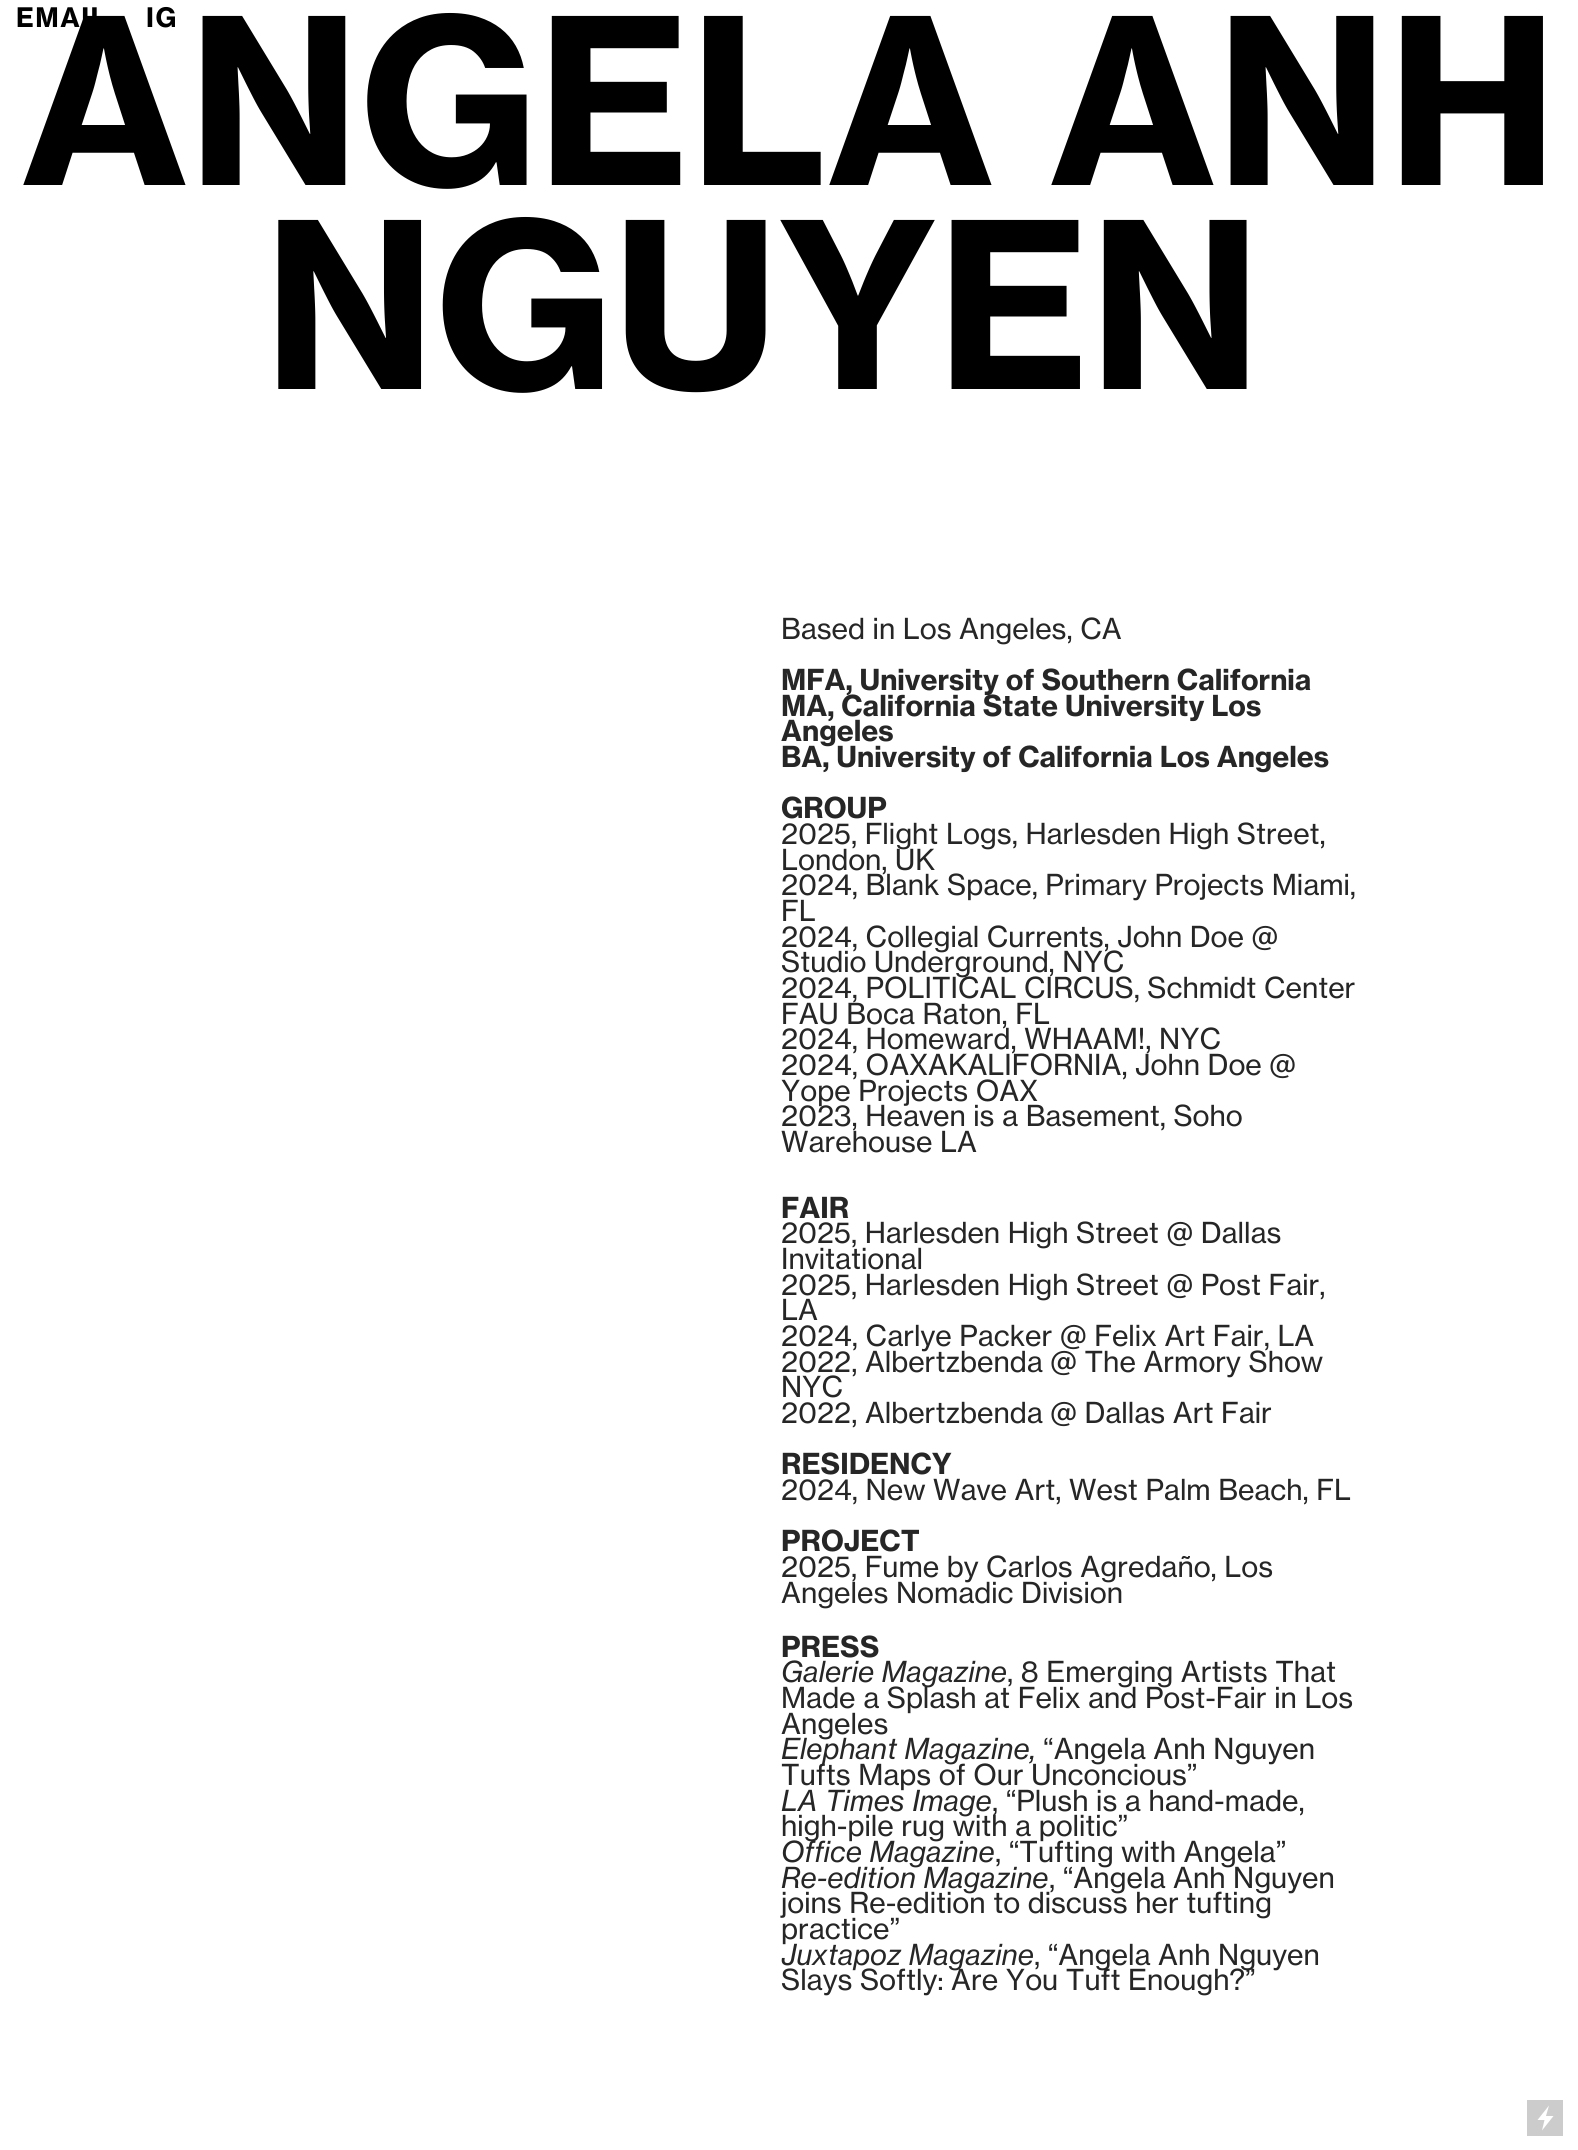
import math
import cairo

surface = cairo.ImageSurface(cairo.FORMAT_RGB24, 1578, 2150)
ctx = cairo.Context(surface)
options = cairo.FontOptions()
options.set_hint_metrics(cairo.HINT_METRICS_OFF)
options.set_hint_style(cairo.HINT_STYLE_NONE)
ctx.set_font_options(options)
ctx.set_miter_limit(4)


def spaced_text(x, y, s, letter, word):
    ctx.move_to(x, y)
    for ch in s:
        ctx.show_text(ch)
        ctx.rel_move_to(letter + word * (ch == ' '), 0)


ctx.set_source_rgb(1, 1, 1)
ctx.paint()
ctx.select_font_face("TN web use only", cairo.FONT_SLANT_NORMAL, cairo.FONT_WEIGHT_BOLD)
ctx.set_font_size(26.5)
ctx.set_source_rgb(0, 0, 0)
spaced_text(16, 27, "EMAIL", 1.5, 0)
spaced_text(146, 27, "IG", 1.5, 0)
ctx.set_font_size(227.25)
ctx.move_to(21, 185)
ctx.show_text("ANGELA ANH")
ctx.move_to(264, 389)
ctx.show_text("NGUYEN")
ctx.select_font_face("TN web use only")
ctx.set_font_size(28.5)
ctx.set_source_rgb(0.149, 0.149, 0.149)
ctx.move_to(781, 639)
ctx.show_text("Based in Los Angeles, CA")
ctx.select_font_face("TN web use only", cairo.FONT_SLANT_NORMAL, cairo.FONT_WEIGHT_BOLD)
ctx.move_to(781, 690)
ctx.show_text("MFA, University of Southern California")
ctx.move_to(781, 716)
ctx.show_text("MA, California State University Los")
ctx.move_to(781, 741)
ctx.show_text("Angeles")
ctx.move_to(781, 767)
ctx.show_text("BA, University of California Los Angeles")
ctx.move_to(781, 818)
ctx.show_text("GROUP")
ctx.select_font_face("TN web use only")
ctx.move_to(781, 844)
ctx.show_text("2025, Flight Logs, Harlesden High Street,")
ctx.move_to(781, 870)
ctx.show_text("London, UK")
ctx.move_to(781, 895)
ctx.show_text("2024, Blank Space, Primary Projects Miami,")
ctx.move_to(781, 921)
ctx.show_text("FL")
ctx.move_to(781, 947)
ctx.show_text("2024, Collegial Currents, John Doe @")
ctx.move_to(781, 972)
ctx.show_text("Studio Underground, NYC")
ctx.move_to(781, 998)
ctx.show_text("2024, POLITICAL CIRCUS, Schmidt Center")
ctx.move_to(781, 1024)
ctx.show_text("FAU Boca Raton, FL")
ctx.move_to(781, 1049)
ctx.show_text("2024, Homeward, WHAAM!, NYC")
ctx.move_to(781, 1075)
ctx.show_text("2024, OAXAKALIFORNIA, John Doe @")
ctx.move_to(781, 1101)
ctx.show_text("Yope Projects OAX")
ctx.move_to(781, 1126)
ctx.show_text("2023, Heaven is a Basement, Soho")
ctx.move_to(781, 1152)
ctx.show_text("Warehouse LA")
ctx.select_font_face("TN web use only", cairo.FONT_SLANT_NORMAL, cairo.FONT_WEIGHT_BOLD)
ctx.move_to(781, 1218)
ctx.show_text("FAIR")
ctx.select_font_face("TN web use only")
ctx.move_to(781, 1243)
ctx.show_text("2025, Harlesden High Street @ Dallas")
ctx.move_to(781, 1269)
ctx.show_text("Invitational")
ctx.move_to(781, 1295)
ctx.show_text("2025, Harlesden High Street @ Post Fair,")
ctx.move_to(781, 1320)
ctx.show_text("LA")
ctx.move_to(781, 1346)
ctx.show_text("2024, Carlye Packer @ Felix Art Fair, LA")
ctx.move_to(781, 1372)
ctx.show_text("2022, Albertzbenda @ The Armory Show")
ctx.move_to(781, 1397)
ctx.show_text("NYC")
ctx.move_to(781, 1423)
ctx.show_text("2022, Albertzbenda @ Dallas Art Fair")
ctx.select_font_face("TN web use only", cairo.FONT_SLANT_NORMAL, cairo.FONT_WEIGHT_BOLD)
ctx.move_to(781, 1474)
ctx.show_text("RESIDENCY")
ctx.select_font_face("TN web use only")
ctx.move_to(781, 1500)
ctx.show_text("2024, New Wave Art, West Palm Beach, FL")
ctx.select_font_face("TN web use only", cairo.FONT_SLANT_NORMAL, cairo.FONT_WEIGHT_BOLD)
ctx.move_to(781, 1551)
ctx.show_text("PROJECT")
ctx.select_font_face("TN web use only")
ctx.move_to(781, 1577)
ctx.show_text("2025, Fume by Carlos Agredaño, Los")
ctx.move_to(781, 1603)
ctx.show_text("Angeles Nomadic Division")
ctx.select_font_face("TN web use only", cairo.FONT_SLANT_NORMAL, cairo.FONT_WEIGHT_BOLD)
ctx.move_to(781, 1657)
ctx.show_text("PRESS")
ctx.select_font_face("TN web use only", cairo.FONT_SLANT_ITALIC)
ctx.move_to(781, 1682)
ctx.show_text("Galerie Magazine")
ctx.select_font_face("TN web use only")
ctx.move_to(1007, 1682)
ctx.show_text(", 8 Emerging Artists That")
ctx.move_to(781, 1708)
ctx.show_text("Made a Splash at Felix and Post-Fair in Los")
ctx.move_to(781, 1734)
ctx.show_text("Angeles")
ctx.select_font_face("TN web use only", cairo.FONT_SLANT_ITALIC)
ctx.move_to(781, 1759)
ctx.show_text("Elephant Magazine,")
ctx.select_font_face("TN web use only")
ctx.move_to(1043, 1759)
ctx.show_text("“Angela Anh Nguyen")
ctx.move_to(781, 1785)
ctx.show_text("Tufts Maps of Our Unconcious”")
ctx.select_font_face("TN web use only", cairo.FONT_SLANT_ITALIC)
ctx.move_to(781, 1811)
ctx.show_text("LA Times Image")
ctx.select_font_face("TN web use only")
ctx.move_to(992, 1811)
ctx.show_text(", “Plush is a hand-made,")
ctx.move_to(781, 1836)
ctx.show_text("high-pile rug with a politic”")
ctx.select_font_face("TN web use only", cairo.FONT_SLANT_ITALIC)
ctx.move_to(781, 1862)
ctx.show_text("Office Magazine")
ctx.select_font_face("TN web use only")
ctx.move_to(995, 1862)
ctx.show_text(", “Tufting with Angela”")
ctx.select_font_face("TN web use only", cairo.FONT_SLANT_ITALIC)
ctx.move_to(781, 1888)
ctx.show_text("Re-edition Magazine")
ctx.select_font_face("TN web use only")
ctx.move_to(1049, 1888)
ctx.show_text(", “Angela Anh Nguyen")
ctx.move_to(781, 1913)
ctx.show_text("joins Re-edition to discuss her tufting")
ctx.move_to(781, 1939)
ctx.show_text("practice”")
ctx.select_font_face("TN web use only", cairo.FONT_SLANT_ITALIC)
ctx.move_to(781, 1965)
ctx.show_text("Juxtapoz Magazine")
ctx.select_font_face("TN web use only")
ctx.move_to(1034, 1965)
ctx.show_text(", “Angela Anh Nguyen")
ctx.move_to(781, 1990)
ctx.show_text("Slays Softly: Are You Tuft Enough?”")
ctx.set_source_rgb(0.8, 0.8, 0.8)
ctx.rectangle(1527, 2100, 36, 36)
ctx.fill()
ctx.set_source_rgb(1, 1, 1)
ctx.new_path()
ctx.move_to(1553.5, 2116)
ctx.line_to(1546, 2116)
ctx.line_to(1549, 2105.5)
ctx.line_to(1537.5, 2120)
ctx.line_to(1544.5, 2120)
ctx.line_to(1542, 2130.5)
ctx.close_path()
ctx.fill()
surface.write_to_png("page.png")
